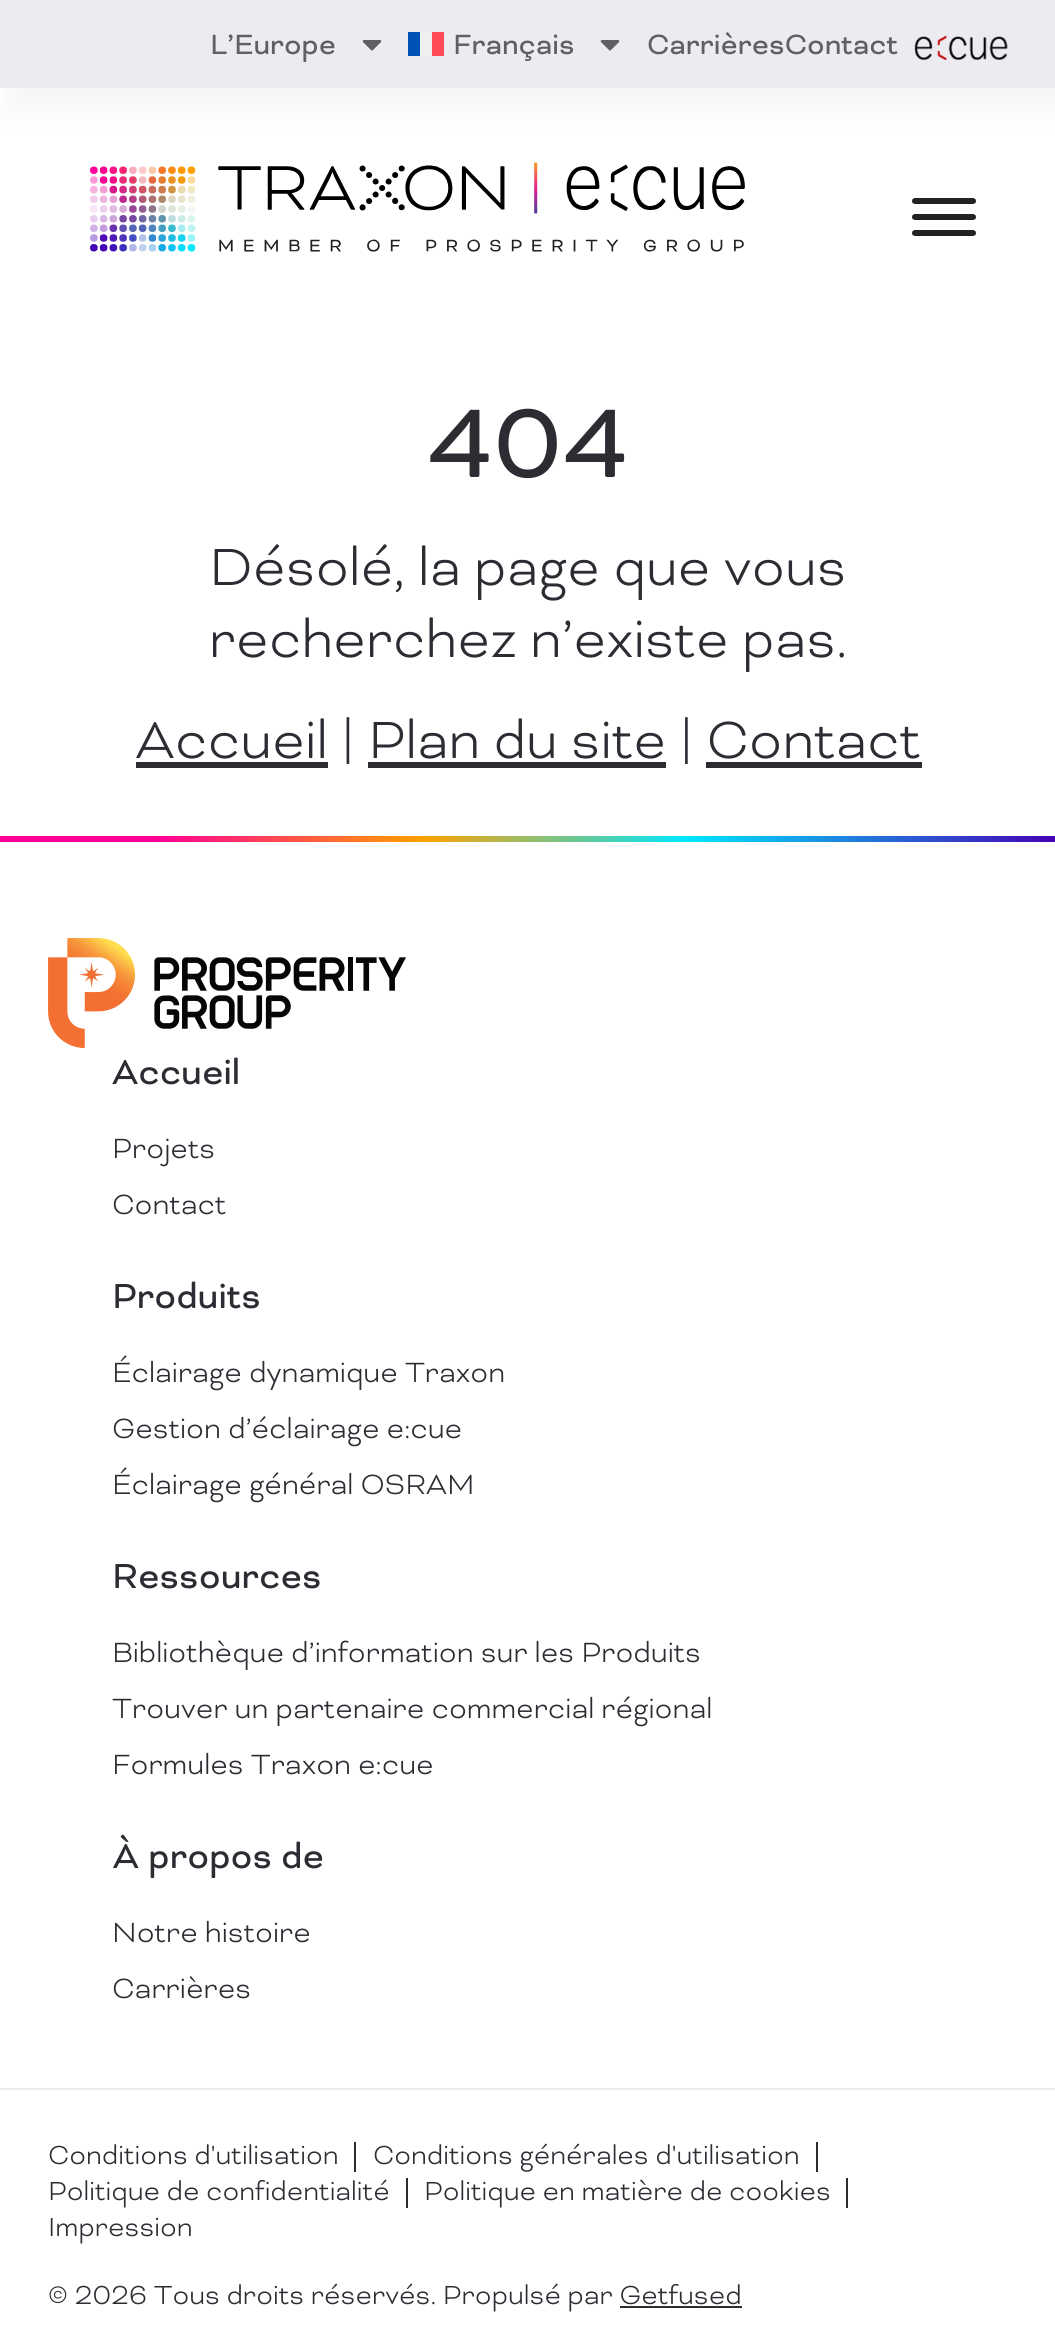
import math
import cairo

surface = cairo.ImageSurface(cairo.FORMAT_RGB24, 1055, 2340)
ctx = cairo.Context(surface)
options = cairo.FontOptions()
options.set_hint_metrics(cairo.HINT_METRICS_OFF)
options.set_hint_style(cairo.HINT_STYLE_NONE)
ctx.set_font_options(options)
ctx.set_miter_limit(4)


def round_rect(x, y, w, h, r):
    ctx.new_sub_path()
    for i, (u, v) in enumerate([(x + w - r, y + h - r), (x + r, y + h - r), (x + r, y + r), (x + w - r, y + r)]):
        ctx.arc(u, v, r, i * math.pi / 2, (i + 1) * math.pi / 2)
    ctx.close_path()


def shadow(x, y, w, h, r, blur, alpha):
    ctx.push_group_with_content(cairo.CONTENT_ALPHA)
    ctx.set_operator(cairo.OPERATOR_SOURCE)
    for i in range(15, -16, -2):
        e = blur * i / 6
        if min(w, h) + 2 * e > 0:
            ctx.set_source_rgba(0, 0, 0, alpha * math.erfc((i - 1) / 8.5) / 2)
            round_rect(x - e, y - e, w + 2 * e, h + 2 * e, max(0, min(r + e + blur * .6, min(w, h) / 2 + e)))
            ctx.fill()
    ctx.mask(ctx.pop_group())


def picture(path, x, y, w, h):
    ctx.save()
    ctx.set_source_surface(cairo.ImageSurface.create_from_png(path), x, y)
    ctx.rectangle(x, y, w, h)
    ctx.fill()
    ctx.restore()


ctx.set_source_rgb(1, 1, 1)
ctx.paint()
ctx.set_source_rgb(0, 0, 0)
shadow(8, 8, 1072, 104, 0, 16, 0.04)
ctx.set_source_rgb(0.922, 0.925, 0.941)
ctx.rectangle(0, 0, 1055, 88)
ctx.fill()
ctx.select_font_face("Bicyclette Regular")
ctx.set_font_size(32)
ctx.set_source_rgb(0.369, 0.376, 0.4)
ctx.move_to(210, 54)
ctx.show_text("L’Europe")
picture("img1.png", 362, 40, 20, 11)
ctx.set_source_rgb(0.941, 0.941, 0.941)
ctx.rectangle(420, 32, 12, 24)
ctx.fill()
ctx.set_source_rgb(1, 0.294, 0.333)
ctx.rectangle(432, 32, 12, 24)
ctx.fill()
ctx.set_source_rgb(0, 0.322, 0.706)
ctx.rectangle(408, 32, 12, 24)
ctx.fill()
ctx.set_source_rgb(0.369, 0.376, 0.4)
ctx.move_to(453, 54)
ctx.show_text("Français")
picture("img1.png", 600, 40, 20, 11)
ctx.move_to(647, 54)
ctx.show_text("CarrièresContact")
picture("img2.png", 914, 35, 94, 25)
picture("img3.png", 90, 162, 655, 90)
ctx.set_source_rgb(0.133, 0.133, 0.133)
round_rect(912, 198, 64, 6, 3)
ctx.fill()
round_rect(912, 214, 64, 6, 3)
ctx.fill()
round_rect(912, 230, 64, 6, 3)
ctx.fill()
ctx.set_font_size(112)
ctx.set_source_rgb(0.169, 0.176, 0.2)
ctx.move_to(427, 477)
ctx.show_text("404")
ctx.select_font_face("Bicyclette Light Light")
ctx.set_font_size(60)
ctx.move_to(209, 585)
ctx.show_text("Désolé, la page que vous")
ctx.move_to(209, 657)
ctx.show_text("recherchez n’existe pas.")
ctx.rectangle(136, 762, 192, 6)
ctx.fill()
ctx.move_to(135, 758)
ctx.show_text("Accueil | Plan du site | Contact")
ctx.rectangle(368, 762, 298, 6)
ctx.fill()
ctx.rectangle(706, 762, 216, 6)
ctx.fill()
picture("img4.png", 0, 836, 1055, 6)
picture("img5.png", 48, 938, 358, 110)
ctx.select_font_face("Bicyclette Regular")
ctx.set_font_size(40)
ctx.move_to(112, 1084)
ctx.show_text("Accueil")
ctx.select_font_face("Bicyclette Light Light")
ctx.set_font_size(32)
ctx.move_to(112, 1158)
ctx.show_text("Projets")
ctx.move_to(112, 1214)
ctx.show_text("Contact")
ctx.select_font_face("Bicyclette Regular")
ctx.set_font_size(40)
ctx.move_to(112, 1308)
ctx.show_text("Produits")
ctx.select_font_face("Bicyclette Light Light")
ctx.set_font_size(32)
ctx.move_to(112, 1382)
ctx.show_text("Éclairage dynamique Traxon")
ctx.move_to(112, 1438)
ctx.show_text("Gestion d’éclairage e:cue")
ctx.move_to(112, 1494)
ctx.show_text("Éclairage général OSRAM")
ctx.select_font_face("Bicyclette Regular")
ctx.set_font_size(40)
ctx.move_to(112, 1588)
ctx.show_text("Ressources")
ctx.select_font_face("Bicyclette Light Light")
ctx.set_font_size(32)
ctx.move_to(112, 1662)
ctx.show_text("Bibliothèque d’information sur les Produits")
ctx.move_to(112, 1718)
ctx.show_text("Trouver un partenaire commercial régional")
ctx.move_to(112, 1774)
ctx.show_text("Formules Traxon e:cue")
ctx.select_font_face("Bicyclette Regular")
ctx.set_font_size(40)
ctx.move_to(112, 1868)
ctx.show_text("À propos de")
ctx.select_font_face("Bicyclette Light Light")
ctx.set_font_size(32)
ctx.move_to(112, 1942)
ctx.show_text("Notre histoire")
ctx.move_to(112, 1998)
ctx.show_text("Carrières")
ctx.set_source_rgb(0.922, 0.925, 0.941)
ctx.rectangle(0, 2088, 1055, 2)
ctx.fill()
ctx.set_font_size(30)
ctx.set_source_rgb(0.169, 0.176, 0.2)
ctx.move_to(48, 2164)
ctx.show_text("Conditions d'utilisation")
ctx.rectangle(354, 2142, 2, 30)
ctx.fill()
ctx.move_to(373, 2164)
ctx.show_text("Conditions générales d'utilisation")
ctx.rectangle(816, 2142, 2, 30)
ctx.fill()
ctx.move_to(48, 2200)
ctx.show_text("Politique de confidentialité")
ctx.rectangle(406, 2178, 2, 30)
ctx.fill()
ctx.move_to(424, 2200)
ctx.show_text("Politique en matière de cookies")
ctx.rectangle(846, 2178, 2, 30)
ctx.fill()
ctx.move_to(48, 2236)
ctx.show_text("Impression")
ctx.move_to(48, 2304)
ctx.show_text("© 2026 Tous droits réservés. Propulsé par Getfused")
ctx.rectangle(620, 2306, 122, 2)
ctx.fill()
surface.write_to_png("page.png")
